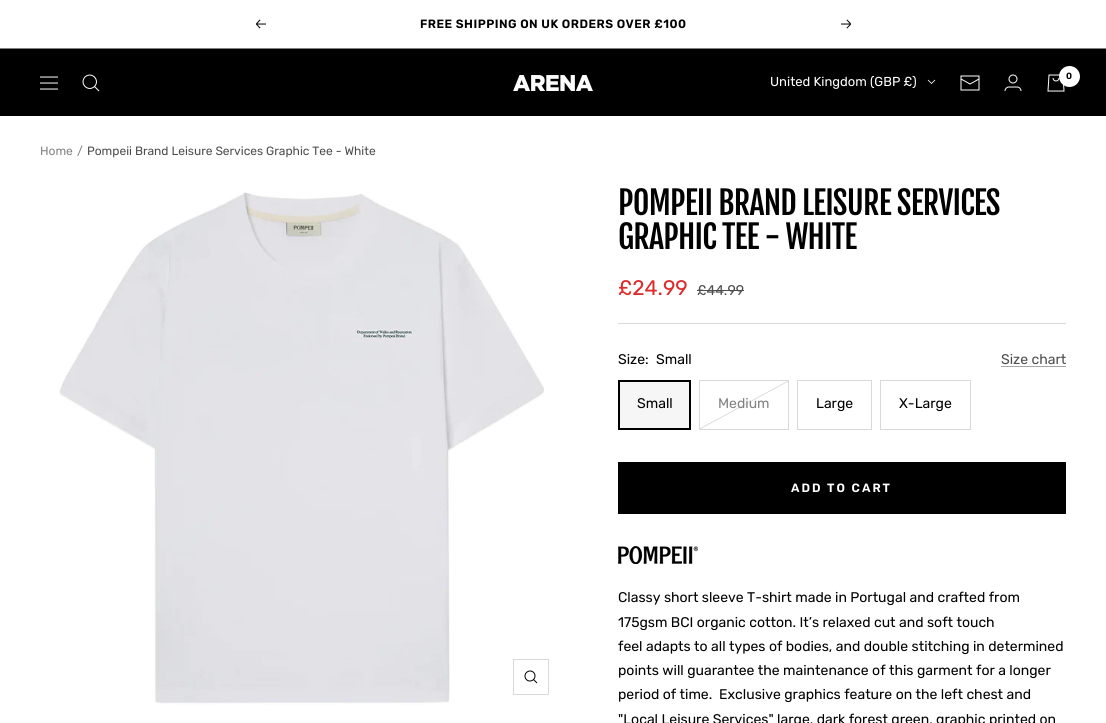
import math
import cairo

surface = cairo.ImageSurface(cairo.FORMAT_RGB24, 1106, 723)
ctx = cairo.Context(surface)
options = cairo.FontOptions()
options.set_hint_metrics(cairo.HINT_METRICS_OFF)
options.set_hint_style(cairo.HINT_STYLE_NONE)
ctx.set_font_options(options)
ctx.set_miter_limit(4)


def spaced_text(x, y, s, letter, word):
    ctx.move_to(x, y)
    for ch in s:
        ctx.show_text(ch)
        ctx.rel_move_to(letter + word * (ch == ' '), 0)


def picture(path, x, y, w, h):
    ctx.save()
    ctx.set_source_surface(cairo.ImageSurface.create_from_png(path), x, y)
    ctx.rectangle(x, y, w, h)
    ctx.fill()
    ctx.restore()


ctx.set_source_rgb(1, 1, 1)
ctx.paint()
ctx.set_source_rgb(0.502, 0.502, 0.502)
ctx.rectangle(0, 48, 1106, 1)
ctx.fill()
picture("img1.png", 256, 19, 10, 10)
ctx.select_font_face("Rubik SemiBold")
ctx.set_font_size(12)
ctx.set_source_rgb(0, 0, 0)
spaced_text(420, 28, "FREE SHIPPING ON UK ORDERS OVER £100", 0.5, 0)
picture("img2.png", 841, 19, 10, 10)
ctx.rectangle(0, 49, 1106, 67)
ctx.fill()
ctx.new_path()
ctx.move_to(40, 77)
ctx.line_to(58, 77)
ctx.move_to(40, 89)
ctx.line_to(58, 89)
ctx.close_path()
ctx.move_to(40, 83)
ctx.line_to(58, 83)
ctx.close_path()
ctx.move_to(94.5, 86.5)
ctx.curve_to(100.5, 80, 91.5, 71, 85, 77)
ctx.curve_to(79, 83.5, 88, 92.5, 94.5, 86.5)
ctx.close_path()
ctx.move_to(94.5, 86.5)
ctx.line_to(99, 91)
ctx.set_source_rgb(1, 1, 1)
ctx.set_line_width(1)
ctx.stroke()
picture("img3.png", 513, 75, 80, 16)
ctx.select_font_face("Rubik")
ctx.set_font_size(13)
ctx.move_to(770, 86)
ctx.show_text("United Kingdom (GBP £)")
ctx.new_path()
ctx.move_to(928, 80)
ctx.line_to(931.5, 83.5)
ctx.line_to(935, 80)
ctx.set_line_width(0.8)
ctx.stroke()
picture("img4.png", 960, 75, 20, 16)
picture("img5.png", 1004, 74, 18, 17)
picture("img6.png", 1047, 74, 18, 18)
ctx.arc(1069.5, 76.5, 10.5, 0, 2 * math.pi)
ctx.fill()
ctx.select_font_face("Rubik SemiBold")
ctx.set_font_size(9)
ctx.set_source_rgb(0, 0, 0)
ctx.move_to(1066, 79)
ctx.show_text("0")
ctx.select_font_face("Rubik")
ctx.set_font_size(12)
ctx.set_source_rgb(0.51, 0.51, 0.51)
ctx.move_to(40, 155)
ctx.show_text("Home")
ctx.move_to(77, 155)
ctx.show_text("/")
ctx.set_source_rgb(0.302, 0.302, 0.302)
ctx.move_to(87, 155)
ctx.show_text("Pompeii Brand Leisure Services Graphic Tee - White")
picture("img7.png", 40, 186, 525, 525)
ctx.rectangle(513.5, 659.5, 35, 35)
ctx.set_source_rgb(0.851, 0.851, 0.851)
ctx.set_line_width(1)
ctx.stroke()
picture("img8.png", 524, 670, 14, 14)
ctx.rectangle(618, 323, 448, 1)
ctx.fill()
ctx.select_font_face("Fjalla One")
ctx.set_font_size(32)
ctx.set_source_rgb(0, 0, 0)
spaced_text(618, 215, "POMPEII BRAND LEISURE SERVICES", -0.8, 0)
spaced_text(618, 249, "GRAPHIC TEE - WHITE", -0.8, 0)
ctx.select_font_face("Rubik")
ctx.set_font_size(21)
ctx.set_source_rgb(0.871, 0.165, 0.165)
ctx.move_to(618, 295)
ctx.show_text("£24.99")
ctx.set_font_size(14)
ctx.set_source_rgb(0.302, 0.302, 0.302)
ctx.move_to(697, 295)
ctx.show_text("£44.99")
ctx.rectangle(697, 290, 47, 1)
ctx.fill()
ctx.set_source_rgb(0, 0, 0)
ctx.move_to(618, 364)
ctx.show_text("Size:")
ctx.move_to(656, 364)
ctx.show_text("Small")
ctx.set_source_rgb(0.302, 0.302, 0.302)
ctx.move_to(1001, 364)
ctx.show_text("Size chart")
ctx.set_source_rgb(0.651, 0.651, 0.651)
ctx.rectangle(1001, 366, 65, 1)
ctx.fill()
ctx.set_source_rgb(0.961, 0.961, 0.961)
ctx.rectangle(620, 382, 69, 46)
ctx.fill()
ctx.rectangle(618.5, 380.5, 72, 49)
ctx.set_source_rgb(0, 0, 0)
ctx.stroke()
ctx.rectangle(619.5, 381.5, 70, 47)
ctx.stroke()
ctx.move_to(637, 408)
ctx.show_text("Small")
gradient = cairo.LinearGradient(724, 368, 764, 442)
gradient.add_color_stop_rgba(0.49, 1, 1, 1, 1)
gradient.add_color_stop_rgba(0.5, 0.851, 0.851, 0.851, 1)
gradient.add_color_stop_rgba(0.51, 1, 1, 1, 1)
ctx.set_source(gradient)
ctx.rectangle(700, 381, 88, 48)
ctx.fill()
ctx.rectangle(699.5, 380.5, 89, 49)
ctx.set_source_rgb(0.851, 0.851, 0.851)
ctx.stroke()
ctx.set_source_rgb(0.51, 0.51, 0.51)
ctx.move_to(718, 408)
ctx.show_text("Medium")
ctx.rectangle(797.5, 380.5, 74, 49)
ctx.set_source_rgb(0.851, 0.851, 0.851)
ctx.stroke()
ctx.set_source_rgb(0, 0, 0)
ctx.move_to(816, 408)
ctx.show_text("Large")
ctx.rectangle(880.5, 380.5, 90, 49)
ctx.set_source_rgb(0.851, 0.851, 0.851)
ctx.stroke()
ctx.set_source_rgb(0, 0, 0)
ctx.move_to(899, 408)
ctx.show_text("X-Large")
ctx.rectangle(618, 462, 448, 52)
ctx.fill()
ctx.select_font_face("Rubik SemiBold")
ctx.set_font_size(12)
ctx.set_source_rgb(1, 1, 1)
spaced_text(791, 492, "ADD TO CART", 2, 0)
picture("img9.png", 618, 546, 80, 18)
ctx.select_font_face("Rubik")
ctx.set_font_size(14)
ctx.set_source_rgb(0, 0, 0)
ctx.move_to(618, 602)
ctx.show_text("Classy short sleeve T-shirt made in Portugal and crafted from")
ctx.move_to(618, 627)
ctx.show_text("175gsm BCI organic cotton. It’s relaxed cut and soft touch")
ctx.move_to(618, 651)
ctx.show_text("feel adapts to all types of bodies, and double stitching in determined")
ctx.move_to(618, 675)
ctx.show_text("points will guarantee the maintenance of this garment for a longer")
ctx.move_to(618, 699)
ctx.show_text("period of time.  Exclusive graphics feature on the left chest and")
ctx.move_to(618, 724)
ctx.show_text("\"Local Leisure Services\" large, dark forest green, graphic printed on")
surface.write_to_png("page.png")
